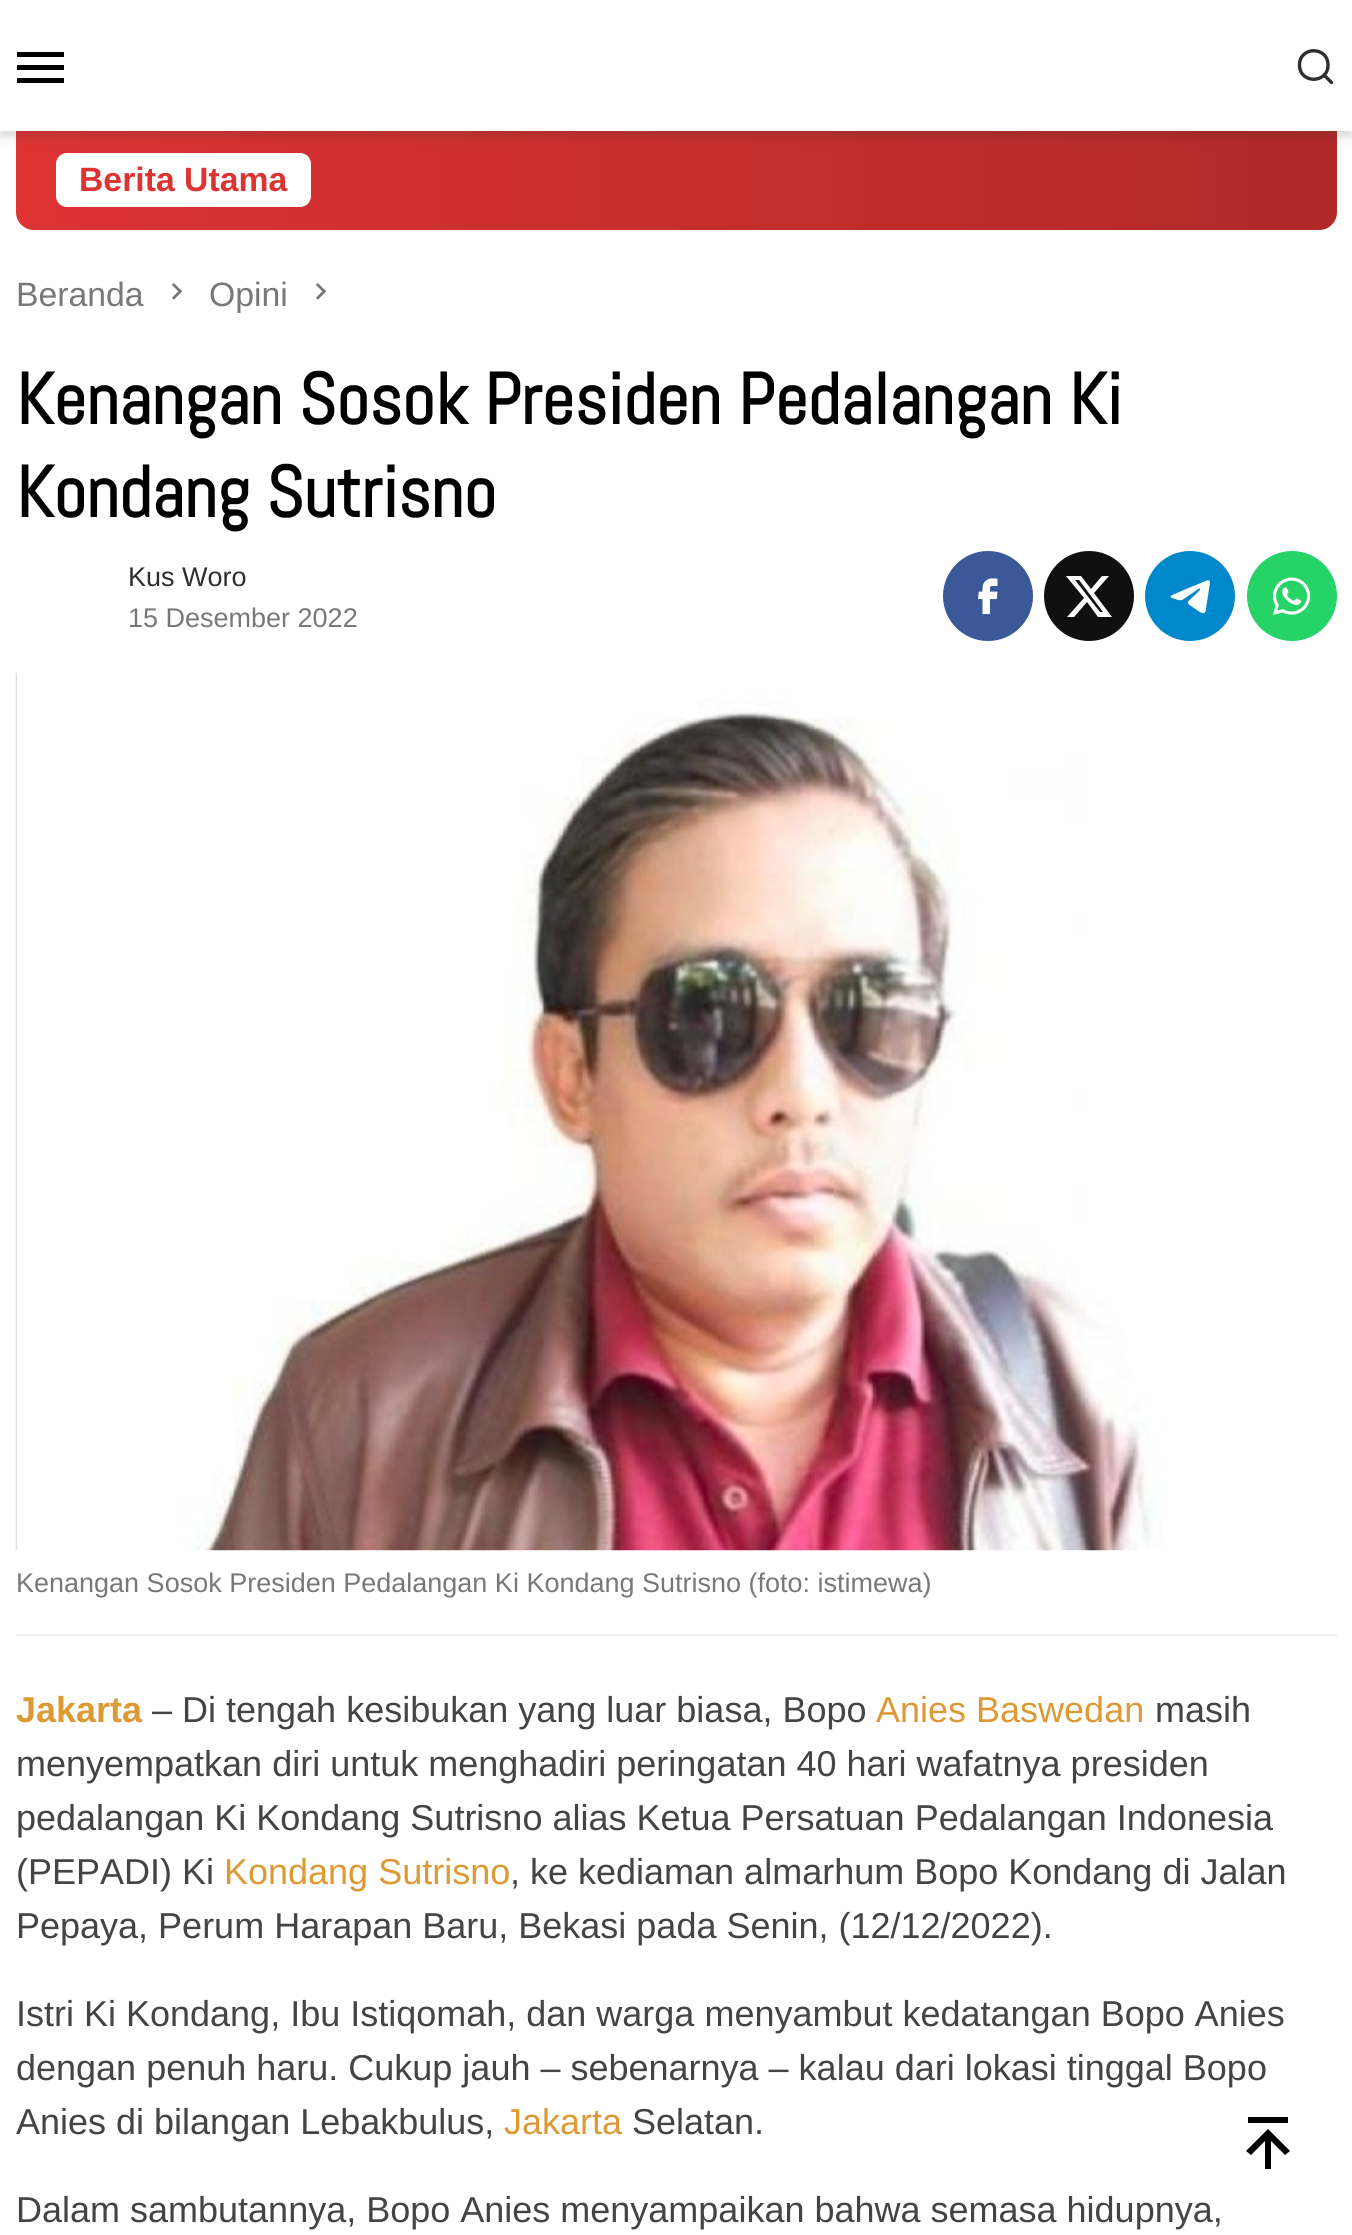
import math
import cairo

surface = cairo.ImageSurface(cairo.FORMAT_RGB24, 1352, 2235)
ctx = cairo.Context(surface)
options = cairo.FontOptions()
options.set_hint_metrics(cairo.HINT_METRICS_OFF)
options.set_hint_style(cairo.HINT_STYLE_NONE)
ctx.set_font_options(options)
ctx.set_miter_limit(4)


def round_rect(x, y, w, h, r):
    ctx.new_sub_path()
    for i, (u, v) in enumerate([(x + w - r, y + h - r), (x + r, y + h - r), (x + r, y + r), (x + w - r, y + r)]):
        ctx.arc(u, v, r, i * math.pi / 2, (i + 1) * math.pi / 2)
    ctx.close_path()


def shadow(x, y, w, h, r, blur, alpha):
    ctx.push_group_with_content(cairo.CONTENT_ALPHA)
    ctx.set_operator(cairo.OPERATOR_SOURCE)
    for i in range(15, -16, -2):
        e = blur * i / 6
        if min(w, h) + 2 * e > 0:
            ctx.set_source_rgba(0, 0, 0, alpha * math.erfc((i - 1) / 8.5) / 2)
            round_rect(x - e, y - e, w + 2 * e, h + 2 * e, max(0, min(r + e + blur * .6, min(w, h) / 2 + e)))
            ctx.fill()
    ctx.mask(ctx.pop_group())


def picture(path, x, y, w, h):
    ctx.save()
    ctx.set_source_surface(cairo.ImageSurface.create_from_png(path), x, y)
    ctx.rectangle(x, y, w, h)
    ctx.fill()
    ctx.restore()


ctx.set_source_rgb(1, 1, 1)
ctx.paint()
ctx.set_source_rgb(0.867, 0.2, 0.2)
ctx.new_path()
ctx.move_to(16, 131)
ctx.line_to(1337, 131)
ctx.line_to(1337, 212)
ctx.curve_to(1337, 222, 1329, 230, 1319, 230)
ctx.line_to(34, 230)
ctx.curve_to(24, 230, 16, 222, 16, 212)
ctx.close_path()
ctx.fill()
gradient = cairo.LinearGradient(16, 180, 1337, 180)
gradient.add_color_stop_rgba(0, 0, 0, 0, 0)
gradient.add_color_stop_rgba(1, 0, 0, 0, 0.2)
ctx.set_source(gradient)
ctx.new_path()
ctx.move_to(16, 131)
ctx.line_to(1337, 131)
ctx.line_to(1337, 212)
ctx.curve_to(1337, 222, 1329, 230, 1319, 230)
ctx.line_to(34, 230)
ctx.curve_to(24, 230, 16, 222, 16, 212)
ctx.close_path()
ctx.fill()
ctx.set_source_rgb(0.204, 0.204, 0.204)
shadow(0, 7, 1352, 130, 0, 4.5, 0.18)
ctx.set_source_rgb(1, 1, 1)
ctx.rectangle(0, 0, 1352, 131)
ctx.fill()
ctx.set_source_rgb(0, 0, 0)
ctx.new_path()
ctx.move_to(17, 52)
ctx.line_to(64, 52)
ctx.line_to(64, 57)
ctx.line_to(17, 57)
ctx.line_to(17, 52)
ctx.move_to(17, 65)
ctx.line_to(64, 65)
ctx.line_to(64, 70)
ctx.line_to(17, 70)
ctx.line_to(17, 65)
ctx.move_to(17, 78)
ctx.line_to(64, 78)
ctx.line_to(64, 83)
ctx.line_to(17, 83)
ctx.close_path()
ctx.fill()
ctx.new_path()
ctx.move_to(1331.5, 82.5)
ctx.line_to(1324, 75)
ctx.move_to(1328, 65)
ctx.curve_to(1328, 84, 1299.5, 84, 1299.5, 65)
ctx.curve_to(1299.5, 46, 1328, 46, 1328, 65)
ctx.close_path()
ctx.set_source_rgb(0.18, 0.18, 0.18)
ctx.set_line_width(3.4)
ctx.set_line_cap(cairo.LINE_CAP_ROUND)
ctx.stroke()
ctx.set_source_rgb(1, 1, 1)
round_rect(56, 153, 255, 54, 11)
ctx.fill()
ctx.select_font_face("Liberation Sans", cairo.FONT_SLANT_NORMAL, cairo.FONT_WEIGHT_BOLD)
ctx.set_font_size(33.75)
ctx.set_source_rgb(0.867, 0.2, 0.2)
ctx.move_to(79, 191)
ctx.show_text("Berita Utama")
ctx.select_font_face("Liberation Sans")
ctx.set_source_rgb(0.471, 0.471, 0.471)
ctx.move_to(16, 306)
ctx.show_text("Beranda")
picture("img1.png", 171, 283, 12, 17)
ctx.move_to(209, 306)
ctx.show_text("Opini")
picture("img1.png", 315, 283, 12, 17)
ctx.select_font_face("Abel", cairo.FONT_SLANT_NORMAL, cairo.FONT_WEIGHT_BOLD)
ctx.set_font_size(72)
ctx.set_source_rgb(0, 0, 0)
ctx.move_to(16, 424)
ctx.show_text("Kenangan Sosok Presiden Pedalangan Ki")
ctx.move_to(16, 517)
ctx.show_text("Kondang Sutrisno")
ctx.select_font_face("Liberation Sans")
ctx.set_font_size(27)
ctx.set_source_rgb(0.18, 0.18, 0.18)
ctx.move_to(128, 586)
ctx.show_text("Kus Woro")
ctx.set_source_rgb(0.471, 0.471, 0.471)
ctx.move_to(128, 627)
ctx.show_text("15 Desember 2022")
ctx.set_source_rgb(0.231, 0.349, 0.596)
ctx.new_path()
ctx.arc(988, 596, 45, 0, 2 * math.pi)
ctx.fill()
picture("img2.png", 978, 578, 20, 37)
ctx.set_source_rgb(0.063, 0.063, 0.063)
ctx.arc(1089, 596, 45, 0, 2 * math.pi)
ctx.fill()
ctx.set_source_rgb(1, 1, 1)
ctx.new_path()
ctx.move_to(1102, 576)
ctx.line_to(1109, 576)
ctx.line_to(1094, 593)
ctx.line_to(1112, 617)
ctx.line_to(1098, 617)
ctx.line_to(1087, 602)
ctx.line_to(1074, 617)
ctx.line_to(1067, 617)
ctx.line_to(1084, 598)
ctx.line_to(1066, 576)
ctx.line_to(1081, 576)
ctx.line_to(1091, 589)
ctx.close_path()
ctx.move_to(1100, 612)
ctx.line_to(1103, 612)
ctx.line_to(1079, 580)
ctx.line_to(1075, 580)
ctx.close_path()
ctx.fill()
ctx.set_source_rgb(0, 0.533, 0.8)
ctx.arc(1190, 596, 45, 0, 2 * math.pi)
ctx.fill()
picture("img3.png", 1170, 580, 40, 34)
ctx.set_source_rgb(0.145, 0.827, 0.4)
ctx.arc(1292, 596, 45, 0, 2 * math.pi)
ctx.fill()
picture("img4.png", 1272, 577, 39, 38)
picture("img5.png", 15, 672, 1147, 879)
ctx.set_source_rgb(0.933, 0.933, 0.933)
ctx.rectangle(16, 1634, 1321, 2)
ctx.fill()
ctx.set_source_rgb(0.471, 0.471, 0.471)
ctx.move_to(16, 1592)
ctx.show_text("Kenangan Sosok Presiden Pedalangan Ki Kondang Sutrisno (foto: istimewa)")
ctx.select_font_face("Liberation Sans", cairo.FONT_SLANT_NORMAL, cairo.FONT_WEIGHT_BOLD)
ctx.set_font_size(36)
ctx.set_source_rgb(0.867, 0.6, 0.2)
ctx.move_to(16, 1722)
ctx.show_text("Jakarta")
ctx.select_font_face("Liberation Sans")
ctx.set_source_rgb(0.267, 0.267, 0.267)
ctx.move_to(152, 1722)
ctx.show_text("– Di tengah kesibukan yang luar biasa, Bopo")
ctx.set_source_rgb(0.867, 0.6, 0.2)
ctx.move_to(876, 1722)
ctx.show_text("Anies Baswedan")
ctx.set_source_rgb(0.267, 0.267, 0.267)
ctx.move_to(1155, 1722)
ctx.show_text("masih")
ctx.move_to(16, 1776)
ctx.show_text("menyempatkan diri untuk menghadiri peringatan 40 hari wafatnya presiden")
ctx.move_to(16, 1830)
ctx.show_text("pedalangan Ki Kondang Sutrisno alias Ketua Persatuan Pedalangan Indonesia")
ctx.move_to(16, 1884)
ctx.show_text("(PEPADI) Ki")
ctx.set_source_rgb(0.867, 0.6, 0.2)
ctx.move_to(224, 1884)
ctx.show_text("Kondang Sutrisno")
ctx.set_source_rgb(0.267, 0.267, 0.267)
ctx.move_to(510, 1884)
ctx.show_text(", ke kediaman almarhum Bopo Kondang di Jalan")
ctx.move_to(16, 1938)
ctx.show_text("Pepaya, Perum Harapan Baru, Bekasi pada Senin, (12/12/2022).")
ctx.move_to(16, 2026)
ctx.show_text("Istri Ki Kondang, Ibu Istiqomah, dan warga menyambut kedatangan Bopo Anies")
ctx.move_to(16, 2080)
ctx.show_text("dengan penuh haru. Cukup jauh – sebenarnya – kalau dari lokasi tinggal Bopo")
ctx.move_to(16, 2134)
ctx.show_text("Anies di bilangan Lebakbulus,")
ctx.set_source_rgb(0.867, 0.6, 0.2)
ctx.move_to(504, 2134)
ctx.show_text("Jakarta")
ctx.set_source_rgb(0.267, 0.267, 0.267)
ctx.move_to(632, 2134)
ctx.show_text("Selatan.")
ctx.move_to(16, 2222)
ctx.show_text("Dalam sambutannya, Bopo Anies menyampaikan bahwa semasa hidupnya,")
ctx.set_source_rgb(0, 0, 0)
ctx.new_path()
ctx.move_to(1248, 2117)
ctx.line_to(1288, 2117)
ctx.line_to(1288, 2123)
ctx.line_to(1248, 2123)
ctx.close_path()
ctx.move_to(1251, 2155)
ctx.line_to(1265, 2141)
ctx.line_to(1265, 2169)
ctx.line_to(1271, 2169)
ctx.line_to(1271, 2141)
ctx.line_to(1285, 2155)
ctx.line_to(1290, 2151)
ctx.line_to(1268, 2129)
ctx.line_to(1246, 2151)
ctx.close_path()
ctx.fill()
surface.write_to_png("page.png")
